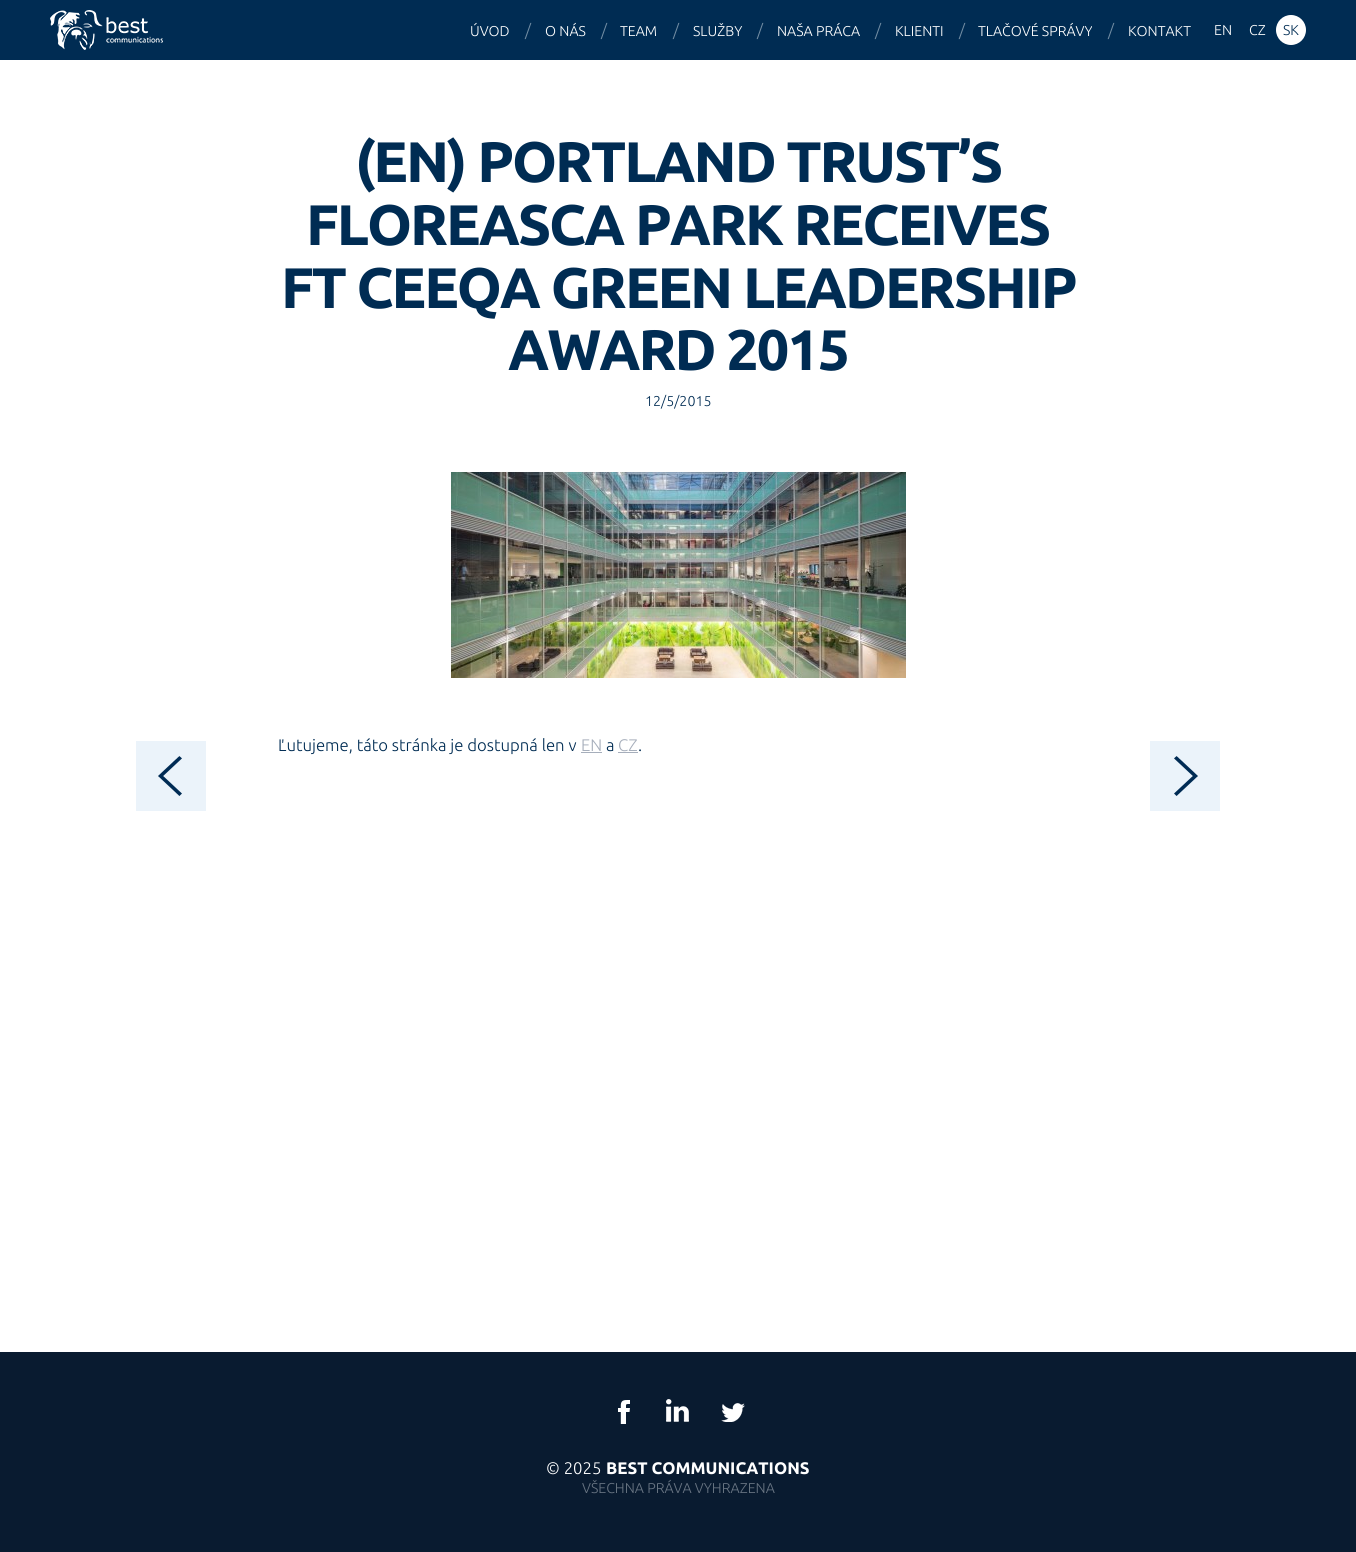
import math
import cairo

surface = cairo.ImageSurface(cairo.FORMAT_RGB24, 1356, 1552)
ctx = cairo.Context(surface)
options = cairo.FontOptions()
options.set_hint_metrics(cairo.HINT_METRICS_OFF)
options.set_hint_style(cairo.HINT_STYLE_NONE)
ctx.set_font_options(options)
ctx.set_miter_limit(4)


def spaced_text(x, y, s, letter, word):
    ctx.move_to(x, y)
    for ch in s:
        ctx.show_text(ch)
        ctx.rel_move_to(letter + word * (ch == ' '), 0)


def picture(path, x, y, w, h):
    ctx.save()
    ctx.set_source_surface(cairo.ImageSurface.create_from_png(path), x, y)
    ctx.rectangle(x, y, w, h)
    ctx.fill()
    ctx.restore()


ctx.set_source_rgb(1, 1, 1)
ctx.paint()
ctx.set_source_rgb(0, 0.173, 0.325)
ctx.rectangle(0, 0, 1356, 60)
ctx.fill()
picture("img1.png", 50, 10, 113, 40)
ctx.select_font_face("Ubuntu Light")
ctx.set_font_size(14.25)
ctx.set_source_rgb(1, 1, 1)
ctx.move_to(470, 36)
ctx.show_text("ÚVOD")
ctx.set_font_size(16.75)
ctx.set_source_rgb(0.447, 0.553, 0.639)
ctx.move_to(525, 36)
ctx.show_text("/")
ctx.set_font_size(14.25)
ctx.set_source_rgb(1, 1, 1)
ctx.move_to(545, 36)
ctx.show_text("O NÁS")
ctx.set_font_size(16.75)
ctx.set_source_rgb(0.447, 0.553, 0.639)
ctx.move_to(601, 36)
ctx.show_text("/")
ctx.set_font_size(14.25)
ctx.set_source_rgb(1, 1, 1)
ctx.move_to(620, 36)
ctx.show_text("TEAM")
ctx.set_font_size(16.75)
ctx.set_source_rgb(0.447, 0.553, 0.639)
ctx.move_to(673, 36)
ctx.show_text("/")
ctx.set_font_size(14.25)
ctx.set_source_rgb(1, 1, 1)
ctx.move_to(693, 36)
ctx.show_text("SLUŽBY")
ctx.set_font_size(16.75)
ctx.set_source_rgb(0.447, 0.553, 0.639)
ctx.move_to(757, 36)
ctx.show_text("/")
ctx.set_font_size(14.25)
ctx.set_source_rgb(1, 1, 1)
ctx.move_to(777, 36)
ctx.show_text("NAŠA PRÁCA")
ctx.set_font_size(16.75)
ctx.set_source_rgb(0.447, 0.553, 0.639)
ctx.move_to(875, 36)
ctx.show_text("/")
ctx.set_font_size(14.25)
ctx.set_source_rgb(1, 1, 1)
ctx.move_to(895, 36)
ctx.show_text("KLIENTI")
ctx.set_font_size(16.75)
ctx.set_source_rgb(0.447, 0.553, 0.639)
ctx.move_to(959, 36)
ctx.show_text("/")
ctx.set_font_size(14.25)
ctx.set_source_rgb(1, 1, 1)
ctx.move_to(978, 36)
ctx.show_text("TLAČOVÉ SPRÁVY")
ctx.set_font_size(16.75)
ctx.set_source_rgb(0.447, 0.553, 0.639)
ctx.move_to(1108, 36)
ctx.show_text("/")
ctx.set_font_size(14.25)
ctx.set_source_rgb(1, 1, 1)
ctx.move_to(1128, 36)
ctx.show_text("KONTAKT")
ctx.move_to(1214, 35)
ctx.show_text("EN")
ctx.move_to(1249, 35)
ctx.show_text("CZ")
ctx.new_path()
ctx.arc(1291, 30, 15, 0, 2 * math.pi)
ctx.fill()
ctx.set_source_rgb(0, 0.173, 0.325)
ctx.move_to(1283, 35)
ctx.show_text("SK")
ctx.select_font_face("Ubuntu", cairo.FONT_SLANT_NORMAL, cairo.FONT_WEIGHT_BOLD)
ctx.set_font_size(57.1)
spaced_text(355, 182, "(EN) PORTLAND TRUST’S", -2, 0)
spaced_text(306, 245, "FLOREASCA PARK RECEIVES", -2, 0)
spaced_text(281, 308, "FT CEEQA GREEN LEADERSHIP", -2, 0)
spaced_text(508, 370, "AWARD 2015", -2, 0)
ctx.select_font_face("Ubuntu Light")
ctx.set_font_size(14.25)
ctx.move_to(645, 406)
ctx.show_text("12/5/2015")
picture("img2.png", 451, 472, 455, 206)
ctx.set_font_size(16.75)
ctx.move_to(278, 751)
ctx.show_text("Ľutujeme, táto stránka je dostupná len v")
ctx.set_source_rgb(0.651, 0.682, 0.733)
ctx.move_to(581, 751)
ctx.show_text("EN")
ctx.rectangle(581, 752, 21, 1)
ctx.fill()
ctx.set_source_rgb(0, 0.173, 0.325)
ctx.move_to(606, 751)
ctx.show_text("a")
ctx.set_source_rgb(0.651, 0.682, 0.733)
ctx.move_to(618, 751)
ctx.show_text("CZ")
ctx.rectangle(618, 752, 20, 1)
ctx.fill()
ctx.set_source_rgb(0, 0.173, 0.325)
ctx.move_to(638, 751)
ctx.show_text(".")
ctx.set_source_rgb(0.918, 0.953, 0.98)
ctx.rectangle(136, 741, 70, 70)
ctx.fill()
picture("img3.png", 158, 756, 24, 40)
ctx.rectangle(1150, 741, 70, 70)
ctx.fill()
picture("img4.png", 1174, 756, 24, 40)
ctx.set_source_rgb(0.039, 0.106, 0.188)
ctx.rectangle(0, 1352, 1356, 200)
ctx.fill()
picture("img5.png", 618, 1400, 12, 24)
picture("img6.png", 666, 1399, 23, 23)
picture("img7.png", 721, 1403, 24, 19)
ctx.set_source_rgb(1, 1, 1)
ctx.move_to(546, 1474)
ctx.show_text("© 2025")
ctx.select_font_face("Ubuntu", cairo.FONT_SLANT_NORMAL, cairo.FONT_WEIGHT_BOLD)
ctx.move_to(606, 1474)
ctx.show_text("BEST COMMUNICATIONS")
ctx.select_font_face("Ubuntu Light")
ctx.set_font_size(14.25)
ctx.set_source_rgb(0.412, 0.459, 0.514)
ctx.move_to(582, 1493)
ctx.show_text("VŠECHNA PRÁVA VYHRAZENA")
surface.write_to_png("page.png")
